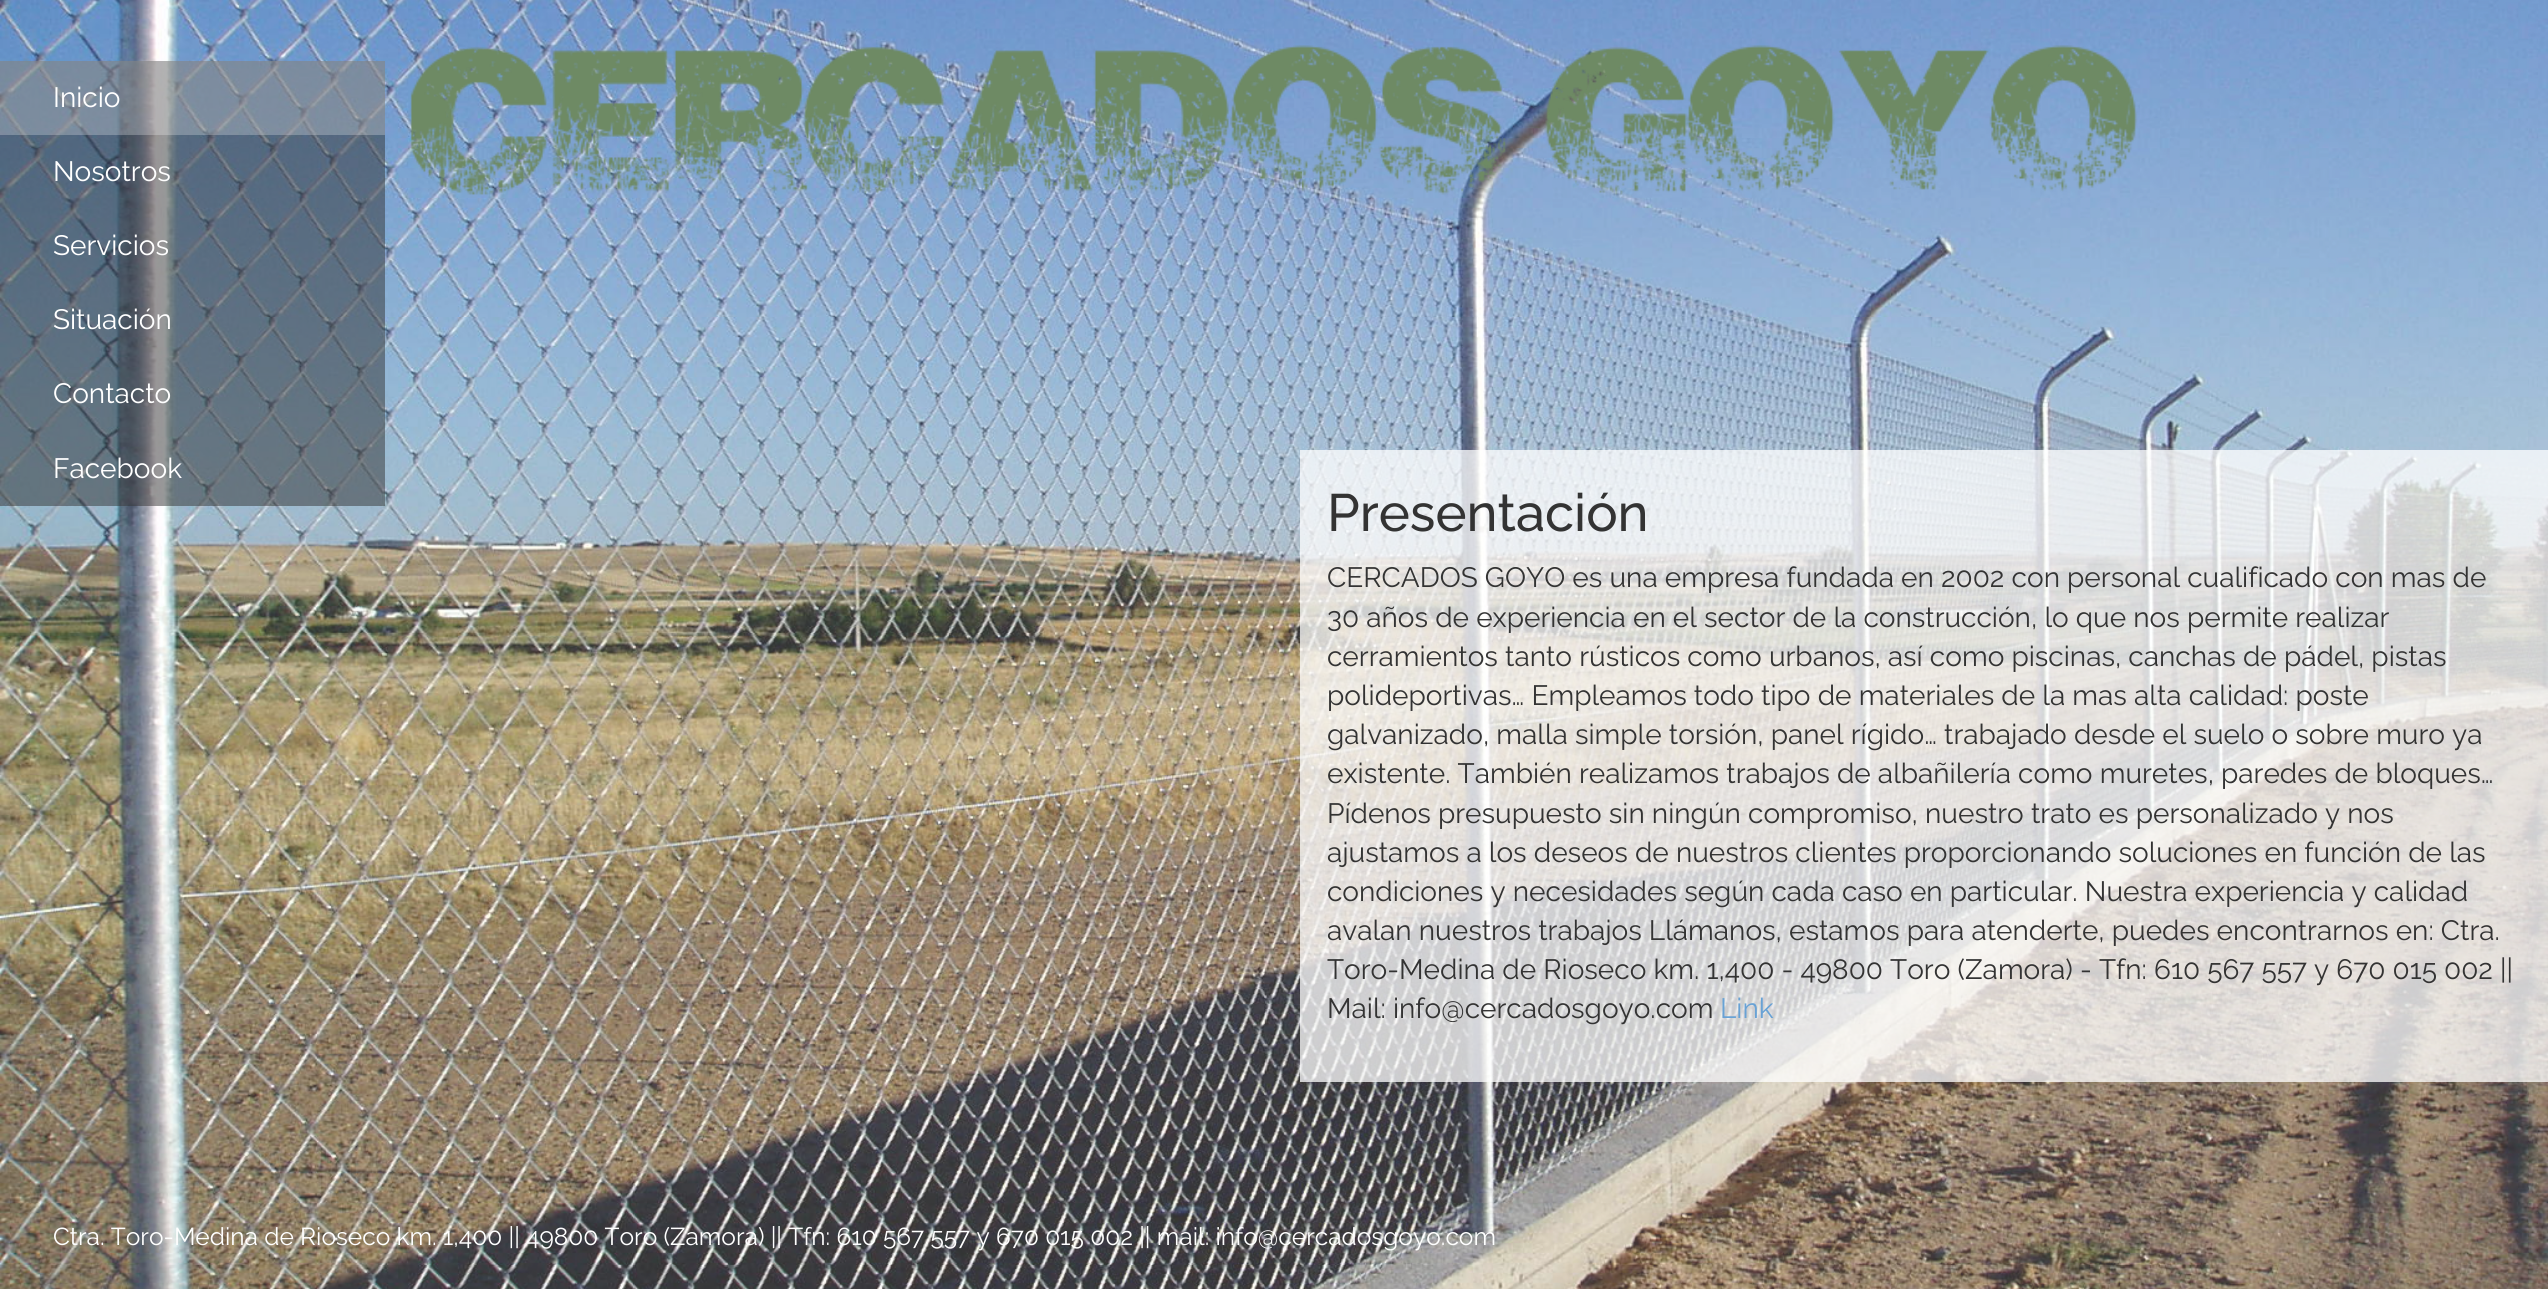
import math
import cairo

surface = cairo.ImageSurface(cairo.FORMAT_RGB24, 2548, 1289)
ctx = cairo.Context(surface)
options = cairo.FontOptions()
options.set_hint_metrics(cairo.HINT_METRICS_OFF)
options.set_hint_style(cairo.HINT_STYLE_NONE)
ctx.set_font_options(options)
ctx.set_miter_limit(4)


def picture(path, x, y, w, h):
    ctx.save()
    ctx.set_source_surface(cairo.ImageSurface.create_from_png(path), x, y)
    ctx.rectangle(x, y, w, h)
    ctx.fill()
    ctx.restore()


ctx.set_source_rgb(1, 1, 1)
ctx.paint()
picture("img1.png", 0, 0, 2548, 1289)
ctx.set_source_rgba(0.2, 0.2, 0.2, 0.5)
ctx.rectangle(0, 61, 385, 445)
ctx.fill()
ctx.set_source_rgba(1, 1, 1, 0.25)
ctx.rectangle(0, 61, 385, 74)
ctx.fill()
ctx.select_font_face("Raleway")
ctx.set_font_size(28)
ctx.set_source_rgb(1, 1, 1)
ctx.move_to(53, 107)
ctx.show_text("Inicio")
ctx.move_to(53, 181)
ctx.show_text("Nosotros")
ctx.move_to(53, 255)
ctx.show_text("Servicios")
ctx.move_to(53, 329)
ctx.show_text("Situación")
ctx.move_to(53, 403)
ctx.show_text("Contacto")
ctx.move_to(53, 478)
ctx.show_text("Facebook")
picture("img2.png", 410, 45, 1728, 150)
ctx.set_source_rgba(1, 1, 1, 0.75)
ctx.rectangle(1300, 450, 1248, 632)
ctx.fill()
ctx.select_font_face("Raleway Medium")
ctx.set_font_size(52.5)
ctx.set_source_rgb(0.2, 0.2, 0.2)
ctx.move_to(1327, 531)
ctx.show_text("Presentación")
ctx.select_font_face("Raleway")
ctx.set_font_size(28)
ctx.move_to(1327, 587)
ctx.show_text("CERCADOS GOYO es una empresa fundada en 2002 con personal cualificado con mas de")
ctx.move_to(1327, 627)
ctx.show_text("30 años de experiencia en el sector de la construcción, lo que nos permite realizar")
ctx.move_to(1327, 666)
ctx.show_text("cerramientos tanto rústicos como urbanos, así como piscinas, canchas de pádel, pistas")
ctx.move_to(1327, 705)
ctx.show_text("polideportivas… Empleamos todo tipo de materiales de la mas alta calidad: poste")
ctx.move_to(1327, 744)
ctx.show_text("galvanizado, malla simple torsión, panel rígido… trabajado desde el suelo o sobre muro ya")
ctx.move_to(1327, 783)
ctx.show_text("existente. También realizamos trabajos de albañilería como muretes, paredes de bloques…")
ctx.move_to(1327, 823)
ctx.show_text("Pídenos presupuesto sin ningún compromiso, nuestro trato es personalizado y nos")
ctx.move_to(1327, 862)
ctx.show_text("ajustamos a los deseos de nuestros clientes proporcionando soluciones en función de las")
ctx.move_to(1327, 901)
ctx.show_text("condiciones y necesidades según cada caso en particular. Nuestra experiencia y calidad")
ctx.move_to(1327, 940)
ctx.show_text("avalan nuestros trabajos Llámanos, estamos para atenderte, puedes encontrarnos en: Ctra.")
ctx.move_to(1327, 979)
ctx.show_text("Toro-Medina de Rioseco km. 1,400 - 49800 Toro (Zamora) - Tfn: 610 567 557 y 670 015 002 ||")
ctx.move_to(1327, 1018)
ctx.show_text("Mail: info@cercadosgoyo.com")
ctx.set_source_rgb(0.408, 0.635, 0.835)
ctx.move_to(1720, 1018)
ctx.show_text("Link")
ctx.set_font_size(24.5)
ctx.set_source_rgb(1, 1, 1)
ctx.move_to(53, 1245)
ctx.show_text("Ctra. Toro-Medina de Rioseco km. 1,400 || 49800 Toro (Zamora) || Tfn: 610 567 557 y 670 015 002 || mail: info@cercadosgoyo.com")
surface.write_to_png("page.png")
